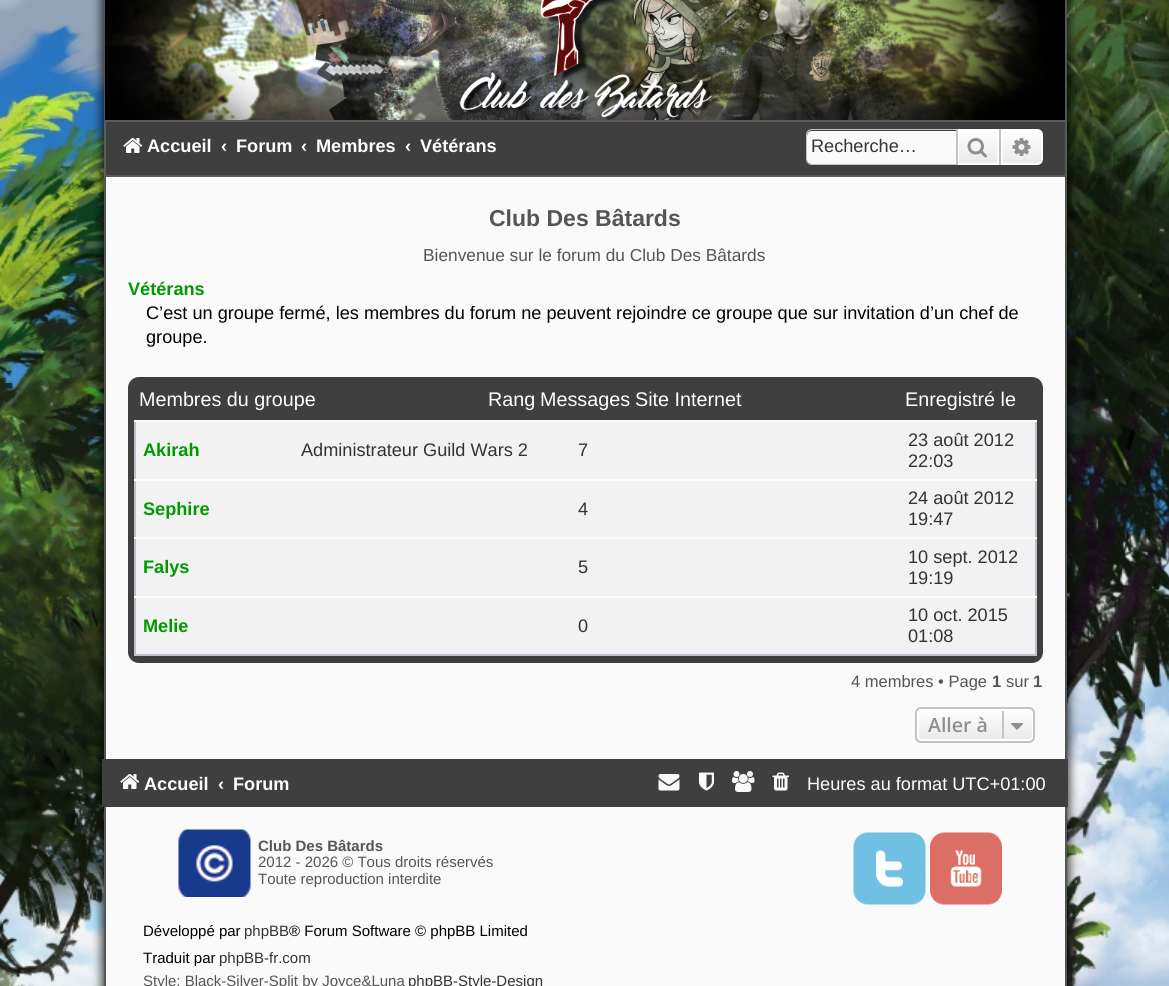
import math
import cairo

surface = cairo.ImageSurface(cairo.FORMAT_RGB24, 1169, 986)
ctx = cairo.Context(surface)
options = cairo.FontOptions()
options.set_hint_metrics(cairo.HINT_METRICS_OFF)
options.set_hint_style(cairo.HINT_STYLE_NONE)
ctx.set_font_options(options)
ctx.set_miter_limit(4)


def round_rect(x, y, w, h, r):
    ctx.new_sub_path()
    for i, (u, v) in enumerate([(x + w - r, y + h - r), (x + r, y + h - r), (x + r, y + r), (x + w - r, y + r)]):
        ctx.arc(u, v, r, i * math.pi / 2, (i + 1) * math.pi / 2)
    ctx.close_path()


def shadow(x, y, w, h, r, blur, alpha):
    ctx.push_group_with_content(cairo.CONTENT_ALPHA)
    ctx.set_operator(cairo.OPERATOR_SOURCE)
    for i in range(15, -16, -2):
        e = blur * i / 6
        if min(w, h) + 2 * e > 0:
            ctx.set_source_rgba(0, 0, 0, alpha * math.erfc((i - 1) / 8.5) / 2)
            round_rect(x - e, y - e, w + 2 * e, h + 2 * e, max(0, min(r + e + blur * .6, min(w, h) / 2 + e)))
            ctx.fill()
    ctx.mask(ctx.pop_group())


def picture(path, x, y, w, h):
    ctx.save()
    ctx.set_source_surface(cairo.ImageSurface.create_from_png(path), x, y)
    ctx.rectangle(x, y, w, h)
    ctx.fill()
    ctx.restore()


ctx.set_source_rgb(1, 1, 1)
ctx.paint()
picture("img1.png", 0, 0, 1169, 986)
ctx.set_source_rgb(0.008, 0.008, 0.008)
shadow(101, -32, 969, 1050, 18, 4.5, 0.7)
ctx.set_source_rgb(0.98, 0.98, 0.98)
ctx.rectangle(106, 177, 959, 809)
ctx.fill()
ctx.rectangle(105, -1, 961, 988)
ctx.set_source_rgb(0.325, 0.329, 0.325)
ctx.stroke()
picture("img2.png", 105, 0, 960, 120)
ctx.set_source_rgb(0.247, 0.247, 0.247)
ctx.rectangle(105, 121, 961, 55)
ctx.fill_preserve()
ctx.set_source_rgb(0.357, 0.357, 0.357)
ctx.stroke()
picture("img3.png", 123, 138, 20, 15)
ctx.select_font_face("Liberation Sans", cairo.FONT_SLANT_NORMAL, cairo.FONT_WEIGHT_BOLD)
ctx.set_font_size(18.15)
ctx.set_source_rgb(1, 1, 1)
ctx.move_to(147, 152)
ctx.show_text("Accueil")
ctx.move_to(221, 152)
ctx.show_text("‹")
ctx.move_to(236, 152)
ctx.show_text("Forum")
ctx.move_to(301, 152)
ctx.show_text("‹")
ctx.move_to(316, 152)
ctx.show_text("Membres")
ctx.move_to(405, 152)
ctx.show_text("‹")
ctx.move_to(420, 152)
ctx.show_text("Vétérans")
ctx.set_source_rgb(0.98, 0.98, 0.98)
ctx.new_path()
ctx.move_to(812, 131)
ctx.line_to(956, 131)
ctx.line_to(956, 164)
ctx.line_to(812, 164)
ctx.curve_to(809, 164, 807, 162, 807, 159)
ctx.line_to(807, 136)
ctx.curve_to(807, 133, 809, 131, 812, 131)
ctx.close_path()
ctx.fill()
ctx.set_source_rgb(0.78, 0.765, 0.749)
ctx.set_fill_rule(cairo.FILL_RULE_EVEN_ODD)
ctx.new_path()
ctx.move_to(812, 129)
ctx.line_to(956, 129)
ctx.line_to(956, 165)
ctx.line_to(812, 165)
ctx.curve_to(808, 165, 806, 162, 806, 159)
ctx.line_to(806, 135)
ctx.curve_to(806, 132, 808, 129, 812, 129)
ctx.close_path()
ctx.move_to(812, 130)
ctx.line_to(956, 130)
ctx.line_to(956, 164)
ctx.line_to(812, 164)
ctx.curve_to(809, 164, 807, 161, 807, 159)
ctx.line_to(807, 135)
ctx.curve_to(807, 133, 809, 130, 812, 130)
ctx.close_path()
ctx.fill()
ctx.select_font_face("Liberation Sans")
ctx.set_source_rgb(0.2, 0.2, 0.2)
ctx.move_to(811, 152)
ctx.show_text("Recherche…")
gradient = cairo.LinearGradient(978, 129, 978, 165)
gradient.add_color_stop_rgba(0, 1, 1, 1, 1)
gradient.add_color_stop_rgba(1, 0.914, 0.914, 0.914, 1)
ctx.set_source(gradient)
ctx.rectangle(959, 131, 38, 32)
ctx.fill()
ctx.rectangle(958, 130, 40, 34)
ctx.set_source_rgb(1, 1, 1)
ctx.stroke()
ctx.set_source_rgb(0.78, 0.765, 0.749)
ctx.rectangle(999, 129, 2, 36)
ctx.fill()
ctx.rectangle(956, 129, 2, 36)
ctx.fill()
picture("img4.png", 967, 138, 20, 20)
gradient = cairo.LinearGradient(1022, 129, 1022, 165)
gradient.add_color_stop_rgba(0, 1, 1, 1, 1)
gradient.add_color_stop_rgba(1, 0.914, 0.914, 0.914, 1)
ctx.set_source(gradient)
ctx.new_path()
ctx.move_to(1002, 130)
ctx.line_to(1037, 130)
ctx.curve_to(1040, 130, 1042, 132, 1042, 135)
ctx.line_to(1042, 159)
ctx.curve_to(1042, 162, 1040, 164, 1037, 164)
ctx.line_to(1002, 164)
ctx.close_path()
ctx.fill_preserve()
ctx.set_source_rgb(1, 1, 1)
ctx.stroke()
picture("img5.png", 1012, 138, 19, 18)
ctx.select_font_face("Liberation Sans", cairo.FONT_SLANT_NORMAL, cairo.FONT_WEIGHT_BOLD)
ctx.set_font_size(23)
ctx.set_source_rgb(0.333, 0.333, 0.333)
ctx.move_to(489, 226)
ctx.show_text("Club Des Bâtards")
ctx.select_font_face("Liberation Sans")
ctx.set_font_size(17.3)
ctx.move_to(423, 261)
ctx.show_text("Bienvenue sur le forum du Club Des Bâtards")
ctx.select_font_face("Liberation Sans", cairo.FONT_SLANT_NORMAL, cairo.FONT_WEIGHT_BOLD)
ctx.set_font_size(18.15)
ctx.set_source_rgb(0, 0.6, 0)
ctx.move_to(128, 295)
ctx.show_text("Vétérans")
ctx.select_font_face("Liberation Sans")
ctx.set_source_rgb(0, 0, 0)
ctx.move_to(146, 319)
ctx.show_text("C’est un groupe fermé, les membres du forum ne peuvent rejoindre ce groupe que sur invitation d’un chef de")
ctx.move_to(146, 343)
ctx.show_text("groupe.")
ctx.set_source_rgb(0.247, 0.247, 0.247)
round_rect(128, 377, 915, 286, 11)
ctx.fill()
ctx.set_font_size(19.75)
ctx.set_source_rgb(1, 1, 1)
ctx.move_to(139, 406)
ctx.show_text("Membres du groupe")
ctx.move_to(488, 406)
ctx.show_text("Rang")
ctx.move_to(540, 406)
ctx.show_text("Messages")
ctx.move_to(635, 406)
ctx.show_text("Site Internet")
ctx.move_to(905, 406)
ctx.show_text("Enregistré le")
ctx.set_source_rgb(0.949, 0.949, 0.949)
ctx.rectangle(136, 422, 899, 57)
ctx.fill()
ctx.select_font_face("Liberation Sans", cairo.FONT_SLANT_NORMAL, cairo.FONT_WEIGHT_BOLD)
ctx.set_font_size(18.15)
ctx.set_source_rgb(0, 0.6, 0)
ctx.move_to(143, 456)
ctx.show_text("Akirah")
ctx.select_font_face("Liberation Sans")
ctx.set_source_rgb(0.2, 0.2, 0.2)
ctx.move_to(301, 456)
ctx.show_text("Administrateur Guild Wars 2")
ctx.move_to(578, 456)
ctx.show_text("7")
ctx.set_source_rgb(0.749, 0.757, 0.812)
ctx.rectangle(1035, 420, 2, 236)
ctx.fill()
ctx.rectangle(134, 654, 903, 2)
ctx.fill()
ctx.rectangle(134, 420, 2, 236)
ctx.fill()
ctx.set_source_rgb(0.98, 0.98, 0.98)
ctx.rectangle(134, 420, 903, 2)
ctx.fill()
ctx.set_source_rgb(0.2, 0.2, 0.2)
ctx.move_to(908, 446)
ctx.show_text("23 août 2012")
ctx.move_to(908, 467)
ctx.show_text("22:03")
ctx.set_source_rgb(0.949, 0.949, 0.949)
ctx.rectangle(136, 481, 899, 56)
ctx.fill()
ctx.select_font_face("Liberation Sans", cairo.FONT_SLANT_NORMAL, cairo.FONT_WEIGHT_BOLD)
ctx.set_source_rgb(0, 0.6, 0)
ctx.move_to(143, 515)
ctx.show_text("Sephire")
ctx.select_font_face("Liberation Sans")
ctx.set_source_rgb(0.2, 0.2, 0.2)
ctx.move_to(578, 515)
ctx.show_text("4")
ctx.set_source_rgb(0.98, 0.98, 0.98)
ctx.rectangle(134, 479, 903, 2)
ctx.fill()
ctx.set_source_rgb(0.2, 0.2, 0.2)
ctx.move_to(908, 504)
ctx.show_text("24 août 2012")
ctx.move_to(908, 525)
ctx.show_text("19:47")
ctx.set_source_rgb(0.949, 0.949, 0.949)
ctx.rectangle(136, 539, 899, 57)
ctx.fill()
ctx.select_font_face("Liberation Sans", cairo.FONT_SLANT_NORMAL, cairo.FONT_WEIGHT_BOLD)
ctx.set_source_rgb(0, 0.6, 0)
ctx.move_to(143, 573)
ctx.show_text("Falys")
ctx.select_font_face("Liberation Sans")
ctx.set_source_rgb(0.2, 0.2, 0.2)
ctx.move_to(578, 573)
ctx.show_text("5")
ctx.set_source_rgb(0.98, 0.98, 0.98)
ctx.rectangle(134, 537, 903, 2)
ctx.fill()
ctx.set_source_rgb(0.2, 0.2, 0.2)
ctx.move_to(908, 563)
ctx.show_text("10 sept. 2012")
ctx.move_to(908, 584)
ctx.show_text("19:19")
ctx.set_source_rgb(0.949, 0.949, 0.949)
ctx.rectangle(136, 598, 899, 56)
ctx.fill()
ctx.select_font_face("Liberation Sans", cairo.FONT_SLANT_NORMAL, cairo.FONT_WEIGHT_BOLD)
ctx.set_source_rgb(0, 0.6, 0)
ctx.move_to(143, 632)
ctx.show_text("Melie")
ctx.select_font_face("Liberation Sans")
ctx.set_source_rgb(0.2, 0.2, 0.2)
ctx.move_to(578, 632)
ctx.show_text("0")
ctx.set_source_rgb(0.98, 0.98, 0.98)
ctx.rectangle(134, 596, 903, 2)
ctx.fill()
ctx.set_source_rgb(0.2, 0.2, 0.2)
ctx.move_to(908, 621)
ctx.show_text("10 oct. 2015")
ctx.move_to(908, 642)
ctx.show_text("01:08")
ctx.set_font_size(16.5)
ctx.set_source_rgb(0.333, 0.333, 0.333)
ctx.move_to(851, 687)
ctx.show_text("4 membres • Page")
ctx.select_font_face("Liberation Sans", cairo.FONT_SLANT_NORMAL, cairo.FONT_WEIGHT_BOLD)
ctx.move_to(992, 687)
ctx.show_text("1")
ctx.select_font_face("Liberation Sans")
ctx.move_to(1006, 687)
ctx.show_text("sur")
ctx.select_font_face("Liberation Sans", cairo.FONT_SLANT_NORMAL, cairo.FONT_WEIGHT_BOLD)
ctx.move_to(1033, 687)
ctx.show_text("1")
ctx.save()
ctx.set_fill_rule(cairo.FILL_RULE_WINDING)
round_rect(915, 707, 120, 36, 6)
ctx.clip()
gradient = cairo.LinearGradient(975, 708, 975, 741)
gradient.add_color_stop_rgba(0, 1, 1, 1, 1)
gradient.add_color_stop_rgba(1, 0.914, 0.914, 0.914, 1)
ctx.set_source(gradient)
ctx.rectangle(915, 708, 120, 33)
ctx.fill()
ctx.restore()
round_rect(918, 709, 115, 31, 4)
ctx.set_source_rgb(1, 1, 1)
ctx.stroke()
round_rect(916, 708, 118, 34, 5)
ctx.set_source_rgb(0.78, 0.765, 0.749)
ctx.stroke()
ctx.select_font_face("Open Sans SemiBold")
ctx.set_font_size(19.5)
ctx.set_source_rgb(0.561, 0.561, 0.561)
ctx.move_to(928, 732)
ctx.show_text("Aller à")
ctx.set_source_rgb(0.78, 0.765, 0.749)
ctx.rectangle(1002, 711, 2, 27)
ctx.fill()
picture("img6.png", 1011, 723, 12, 7)
ctx.set_source_rgb(0.247, 0.247, 0.247)
ctx.rectangle(102, 759, 966, 48)
ctx.fill()
picture("img7.png", 120, 774, 20, 15)
ctx.select_font_face("Liberation Sans", cairo.FONT_SLANT_NORMAL, cairo.FONT_WEIGHT_BOLD)
ctx.set_font_size(18.15)
ctx.set_source_rgb(1, 1, 1)
ctx.move_to(144, 790)
ctx.show_text("Accueil")
ctx.move_to(218, 790)
ctx.show_text("‹")
ctx.move_to(233, 790)
ctx.show_text("Forum")
picture("img8.png", 658, 774, 22, 17)
picture("img9.png", 699, 772, 15, 19)
picture("img10.png", 732, 771, 23, 21)
picture("img11.png", 772, 772, 17, 19)
ctx.select_font_face("Liberation Sans")
ctx.move_to(807, 790)
ctx.show_text("Heures au format UTC+01:00")
picture("img12.png", 178, 829, 73, 68)
ctx.select_font_face("Liberation Sans", cairo.FONT_SLANT_NORMAL, cairo.FONT_WEIGHT_BOLD)
ctx.set_font_size(15)
ctx.set_source_rgb(0.333, 0.333, 0.333)
ctx.move_to(258, 851)
ctx.show_text("Club Des Bâtards")
ctx.select_font_face("Liberation Sans")
ctx.move_to(258, 867)
ctx.show_text("2012 - 2026 © Tous droits réservés")
ctx.move_to(258, 884)
ctx.show_text("Toute reproduction interdite")
picture("img13.png", 853, 832, 73, 73)
picture("img14.png", 930, 832, 72, 73)
ctx.set_source_rgb(0, 0, 0)
ctx.move_to(143, 936)
ctx.show_text("Développé par")
ctx.set_source_rgb(0.2, 0.2, 0.2)
ctx.move_to(244, 936)
ctx.show_text("phpBB")
ctx.set_source_rgb(0, 0, 0)
ctx.move_to(289, 936)
ctx.show_text("® Forum Software © phpBB Limited")
ctx.move_to(143, 963)
ctx.show_text("Traduit par")
ctx.set_source_rgb(0.2, 0.2, 0.2)
ctx.move_to(219, 963)
ctx.show_text("phpBB-fr.com")
ctx.set_source_rgb(0.333, 0.333, 0.333)
ctx.move_to(143, 986)
ctx.show_text("Style: Black-Silver-Split by Joyce&Luna")
ctx.set_source_rgb(0.2, 0.2, 0.2)
ctx.move_to(408, 986)
ctx.show_text("phpBB-Style-Design")
surface.write_to_png("page.png")
